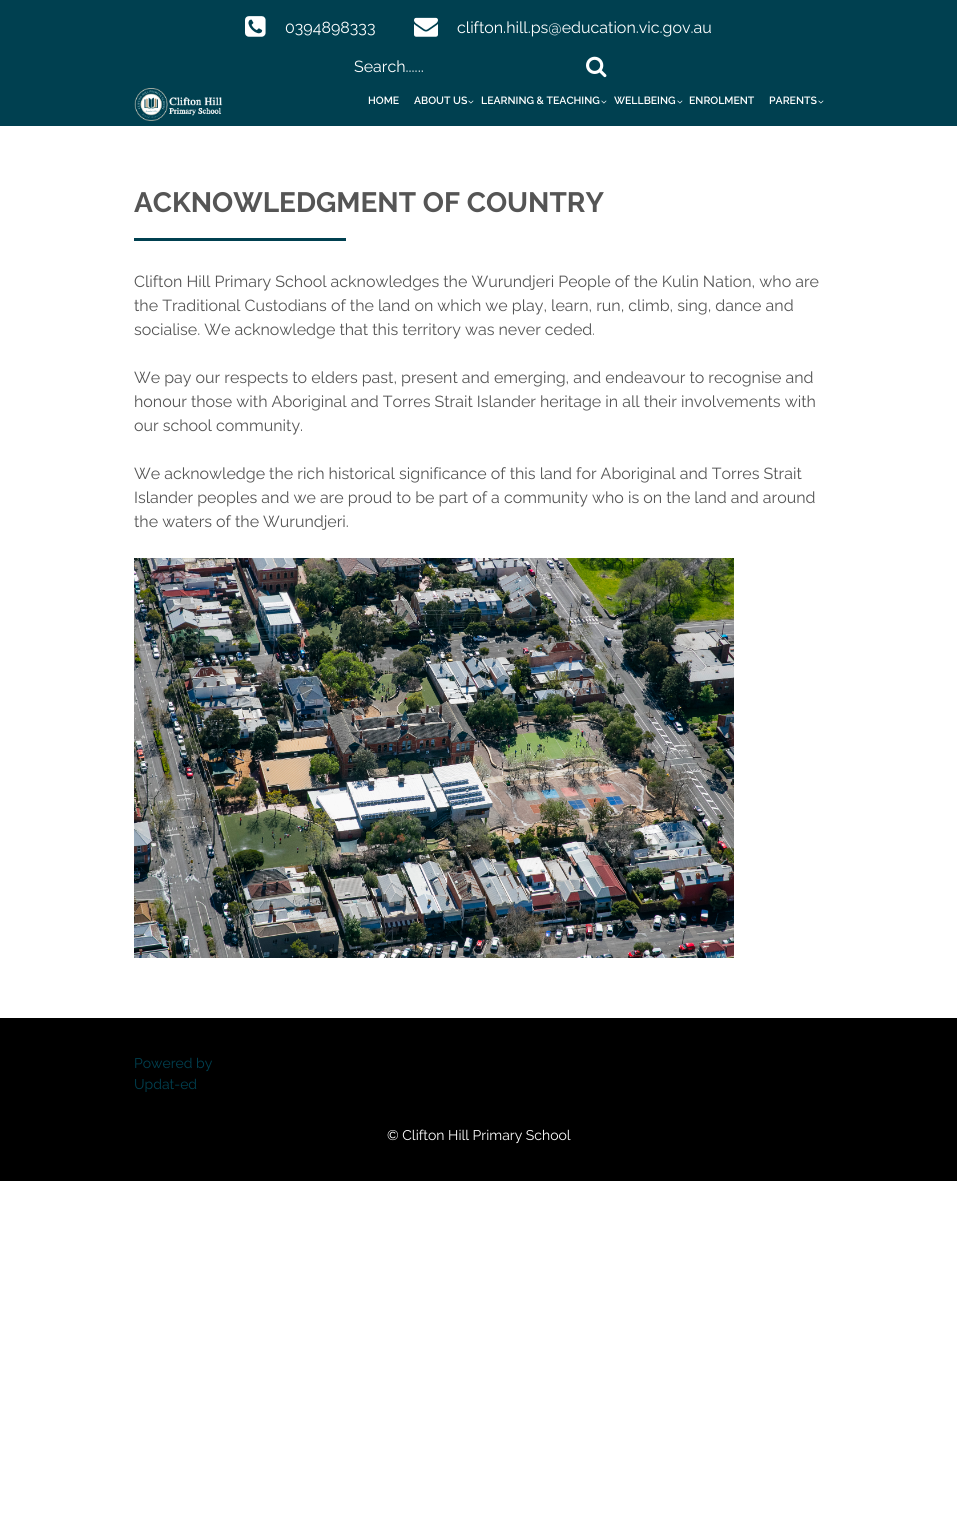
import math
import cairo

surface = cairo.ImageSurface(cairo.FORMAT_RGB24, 957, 1522)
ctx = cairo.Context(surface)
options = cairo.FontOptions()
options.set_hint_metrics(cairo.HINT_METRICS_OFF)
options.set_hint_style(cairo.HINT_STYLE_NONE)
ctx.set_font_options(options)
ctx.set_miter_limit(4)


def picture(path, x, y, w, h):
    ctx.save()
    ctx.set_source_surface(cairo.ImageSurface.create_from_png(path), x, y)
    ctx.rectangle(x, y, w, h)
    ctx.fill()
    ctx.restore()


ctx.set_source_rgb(1, 1, 1)
ctx.paint()
ctx.set_source_rgb(0, 0.251, 0.314)
ctx.rectangle(0, 0, 957, 126)
ctx.fill()
picture("img1.png", 245, 16, 21, 21)
ctx.select_font_face("Raleway")
ctx.set_font_size(16)
ctx.set_source_rgb(1, 1, 1)
ctx.move_to(285, 33)
ctx.show_text("0394898333")
picture("img2.png", 414, 17, 24, 20)
ctx.move_to(457, 33)
ctx.show_text("clifton.hill.ps@education.vic.gov.au")
ctx.move_to(354, 72)
ctx.show_text("Search......")
picture("img3.png", 586, 56, 21, 22)
picture("img4.png", 134, 88, 89, 33)
ctx.select_font_face("Raleway SemiBold")
ctx.set_font_size(10.5)
ctx.move_to(368, 104)
ctx.show_text("HOME")
ctx.move_to(414, 104)
ctx.show_text("ABOUT US")
picture("img5.png", 468, 100, 6, 4)
ctx.move_to(481, 104)
ctx.show_text("LEARNING & TEACHING")
picture("img5.png", 601, 100, 6, 4)
ctx.move_to(614, 104)
ctx.show_text("WELLBEING")
picture("img5.png", 677, 100, 6, 4)
ctx.move_to(689, 104)
ctx.show_text("ENROLMENT")
ctx.move_to(769, 104)
ctx.show_text("PARENTS")
picture("img5.png", 818, 100, 6, 4)
ctx.select_font_face("Raleway", cairo.FONT_SLANT_NORMAL, cairo.FONT_WEIGHT_BOLD)
ctx.set_font_size(28)
ctx.set_source_rgb(0.333, 0.333, 0.333)
ctx.move_to(134, 212)
ctx.show_text("ACKNOWLEDGMENT OF COUNTRY")
ctx.set_source_rgb(0, 0.251, 0.314)
ctx.rectangle(134, 238, 212, 3)
ctx.fill()
ctx.select_font_face("Raleway")
ctx.set_font_size(16)
ctx.set_source_rgb(0.333, 0.333, 0.333)
ctx.move_to(134, 287)
ctx.show_text("Clifton Hill Primary School acknowledges the Wurundjeri People of the Kulin Nation, who are")
ctx.move_to(134, 311)
ctx.show_text("the Traditional Custodians of the land on which we play, learn, run, climb, sing, dance and")
ctx.move_to(134, 335)
ctx.show_text("socialise. We acknowledge that this territory was never ceded.")
ctx.move_to(134, 383)
ctx.show_text("We pay our respects to elders past, present and emerging, and endeavour to recognise and")
ctx.move_to(134, 407)
ctx.show_text("honour those with Aboriginal and Torres Strait Islander heritage in all their involvements with")
ctx.move_to(134, 431)
ctx.show_text("our school community.")
ctx.move_to(134, 479)
ctx.show_text("We acknowledge the rich historical significance of this land for Aboriginal and Torres Strait")
ctx.move_to(134, 503)
ctx.show_text("Islander peoples and we are proud to be part of a community who is on the land and around")
ctx.move_to(134, 527)
ctx.show_text("the waters of the Wurundjeri.")
picture("img6.png", 134, 558, 600, 400)
ctx.set_source_rgb(0, 0, 0)
ctx.rectangle(0, 1018, 957, 163)
ctx.fill()
ctx.set_font_size(14)
ctx.set_source_rgb(0, 0.251, 0.314)
ctx.move_to(134, 1068)
ctx.show_text("Powered by")
ctx.move_to(134, 1089)
ctx.show_text("Updat-ed")
ctx.set_source_rgb(1, 1, 1)
ctx.move_to(387, 1140)
ctx.show_text("© Clifton Hill Primary School")
surface.write_to_png("page.png")
